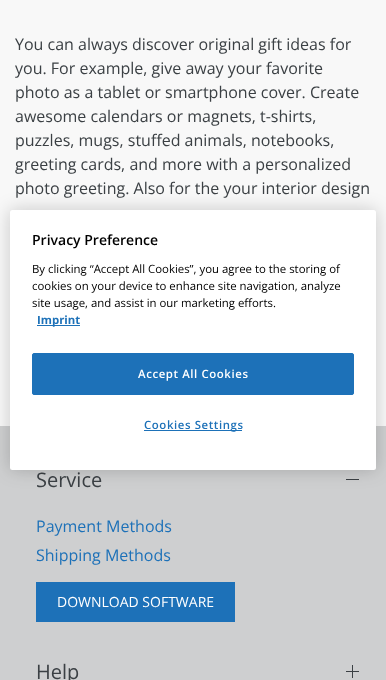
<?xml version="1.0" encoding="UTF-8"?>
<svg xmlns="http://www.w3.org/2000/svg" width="386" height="680">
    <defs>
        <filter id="blur1" x="-50%" y="-200%" width="200%" height="500%"><feGaussianBlur stdDeviation="9"/></filter>
    </defs>
    <rect width="100%" height="100%" fill="#F8F8F8"/>
    <text font-family="Open Sans" font-size="16" fill="#3B4044">
        <tspan x="15" y="50">You can always discover original gift ideas for</tspan>
        <tspan x="15" y="74">you. For example, give away your favorite</tspan>
        <tspan x="15" y="98">photo as a tablet or smartphone cover. Create</tspan>
        <tspan x="15" y="122">awesome calendars or magnets, t-shirts,</tspan>
        <tspan x="15" y="146">puzzles, mugs, stuffed animals, notebooks,</tspan>
        <tspan x="15" y="170">greeting cards, and more with a personalized</tspan>
        <tspan x="15" y="194">photo greeting. Also for the your interior design</tspan>
    </text>
    <rect x="0" y="426" width="386" height="254" fill="#CECFD0"/>
    <text x="36" y="487" font-family="Open Sans" font-size="20" fill="#3B4044">Service</text>
    <rect x="346" y="479" width="13" height="1" fill="#3B4044"/>
    <text font-family="Open Sans" font-size="16" fill="#1D71B8">
        <tspan x="36" y="532">Payment Methods</tspan>
        <tspan x="36" y="561">Shipping Methods</tspan>
    </text>
    <rect x="36" y="582" width="199" height="40" fill="#1D71B8"/>
    <text x="57" y="607" font-family="Open Sans" font-size="14" fill="#FFFFFF">DOWNLOAD SOFTWARE</text>
    <text x="36" y="679" font-family="Open Sans" font-size="20" fill="#3B4044">Help</text>
    <rect x="346" y="671" width="13" height="1" fill="#3B4044"/>
    <rect x="352" y="665" width="1" height="13" fill="#3B4044"/>
    <rect x="10" y="210" width="366" height="260" rx="2.5" fill="#000000" fill-opacity="0.2" filter="url(#blur1)"/>
    <rect x="10" y="210" width="366" height="260" rx="2.5" fill="#FFFFFF"/>
    <text x="32" y="245" font-family="Open Sans" font-size="14" font-weight="600" fill="#000000">Privacy Preference</text>
    <text font-family="Open Sans" font-size="11.4" fill="#000000">
        <tspan x="32" y="273">By clicking “Accept All Cookies”, you agree to the storing of</tspan>
        <tspan x="32" y="290">cookies on your device to enhance site navigation, analyze</tspan>
        <tspan x="32" y="307">site usage, and assist in our marketing efforts.</tspan>
    </text>
    <rect x="37" y="325" width="43" height="1" fill="#1D71B8"/>
    <text x="37" y="324" font-family="Open Sans" font-size="11.4" font-weight="700" fill="#1D71B8">Imprint</text>
    <rect x="32.5" y="353.5" width="321" height="41" rx="1.5" fill="#1D71B8" stroke="#1D71B8"/>
    <text x="138" y="378" font-family="Open Sans" font-size="11.4" font-weight="600" letter-spacing="0.6" fill="#FFFFFF">Accept All Cookies</text>
    <rect x="144" y="430" width="98" height="1" fill="#1D71B8"/>
    <text x="144" y="429" font-family="Open Sans" font-size="11.4" font-weight="600" letter-spacing="0.6" fill="#1D71B8">Cookies Settings</text>
</svg>
